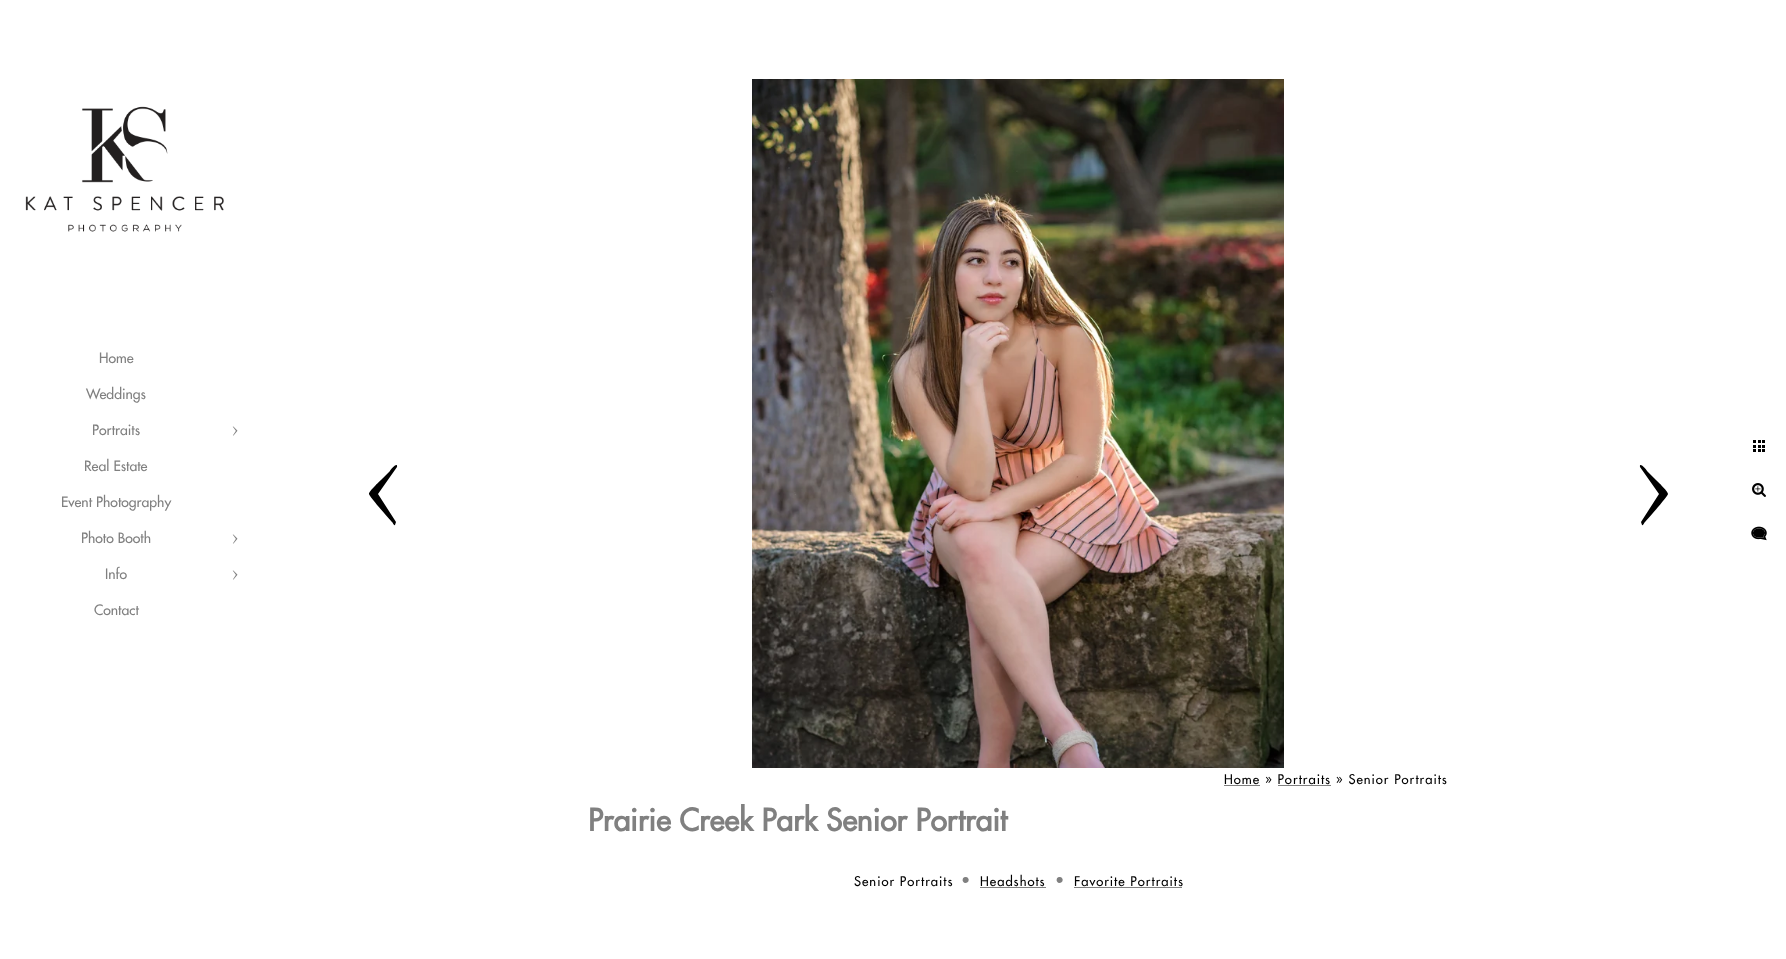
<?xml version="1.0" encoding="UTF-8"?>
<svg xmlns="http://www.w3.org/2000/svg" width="1786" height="959">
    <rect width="100%" height="100%" fill="#FFFFFF"/>
    <image x="25" y="106" width="199" height="126" href="img_01.png"/>
    <text x="99" y="363" font-family="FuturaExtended" font-size="14" fill="#808080">Home</text>
    <text x="86" y="399" font-family="FuturaExtended" font-size="14" fill="#808080">Weddings</text>
    <text x="92" y="435" font-family="FuturaExtended" font-size="14" fill="#808080">Portraits</text>
    <image x="232" y="426" width="6" height="10" href="img_02.png"/>
    <text x="84" y="471" font-family="FuturaExtended" font-size="14" fill="#808080">Real Estate</text>
    <text x="61" y="507" font-family="FuturaExtended" font-size="14" fill="#808080">Event Photography</text>
    <text x="81" y="543" font-family="FuturaExtended" font-size="14" fill="#808080">Photo Booth</text>
    <image x="232" y="534" width="6" height="10" href="img_02.png"/>
    <text x="105" y="579" font-family="FuturaExtended" font-size="14" fill="#808080">Info</text>
    <image x="232" y="570" width="6" height="10" href="img_02.png"/>
    <text x="94" y="615" font-family="FuturaExtended" font-size="14" fill="#808080">Contact</text>
    <path d="M 369 494 C 369 491 381 480 383 478 L 390 471 C 390 470 398 461 397 467 L 378 494 L 396 522 L 395 525 C 394 526 393 523 392 522 C 389 519 369 496 369 494 Z" fill="#000000"/>
    <image x="752" y="79" width="532" height="689" href="img_03.png"/>
    <path d="M 1668 494 C 1668 491 1656 480 1654 478 L 1647 471 C 1647 470 1639 461 1640 467 L 1659 494 L 1641 522 L 1642 525 C 1643 526 1644 523 1645 522 C 1648 519 1668 496 1668 494 Z" fill="#000000"/>
    <image x="1753" y="440" width="12" height="12" href="img_04.png"/>
    <image x="1752" y="483" width="14" height="14" href="img_05.png"/>
    <image x="1751" y="526" width="16" height="15" href="img_06.png"/>
    <text x="1224" y="784" font-family="FuturaExtended" font-size="13" letter-spacing="1" fill="#000000">Home » Portraits » Senior Portraits</text>
    <rect x="1224" y="785" width="36" height="1" fill="#808080"/>
    <rect x="1278" y="785" width="53" height="1" fill="#808080"/>
    <text x="588" y="831" font-family="FuturaExtended" font-size="30" font-weight="700" fill="#808080">Prairie Creek Park Senior Portrait</text>
    <text x="854" y="886" font-family="FuturaExtended" font-size="13" letter-spacing="1" fill="#000000">Senior Portraits</text>
    <text x="961" y="886" font-family="FuturaExtended" font-size="16" fill="#808080">·</text>
    <text x="980" y="886" font-family="FuturaExtended" font-size="13" letter-spacing="1" fill="#000000">Headshots</text>
    <rect x="980" y="887" width="66" height="1" fill="#808080"/>
    <text x="1055" y="886" font-family="FuturaExtended" font-size="16" fill="#808080">·</text>
    <text x="1074" y="886" font-family="FuturaExtended" font-size="13" letter-spacing="1" fill="#000000">Favorite Portraits</text>
    <rect x="1074" y="887" width="108" height="1" fill="#808080"/>
</svg>
